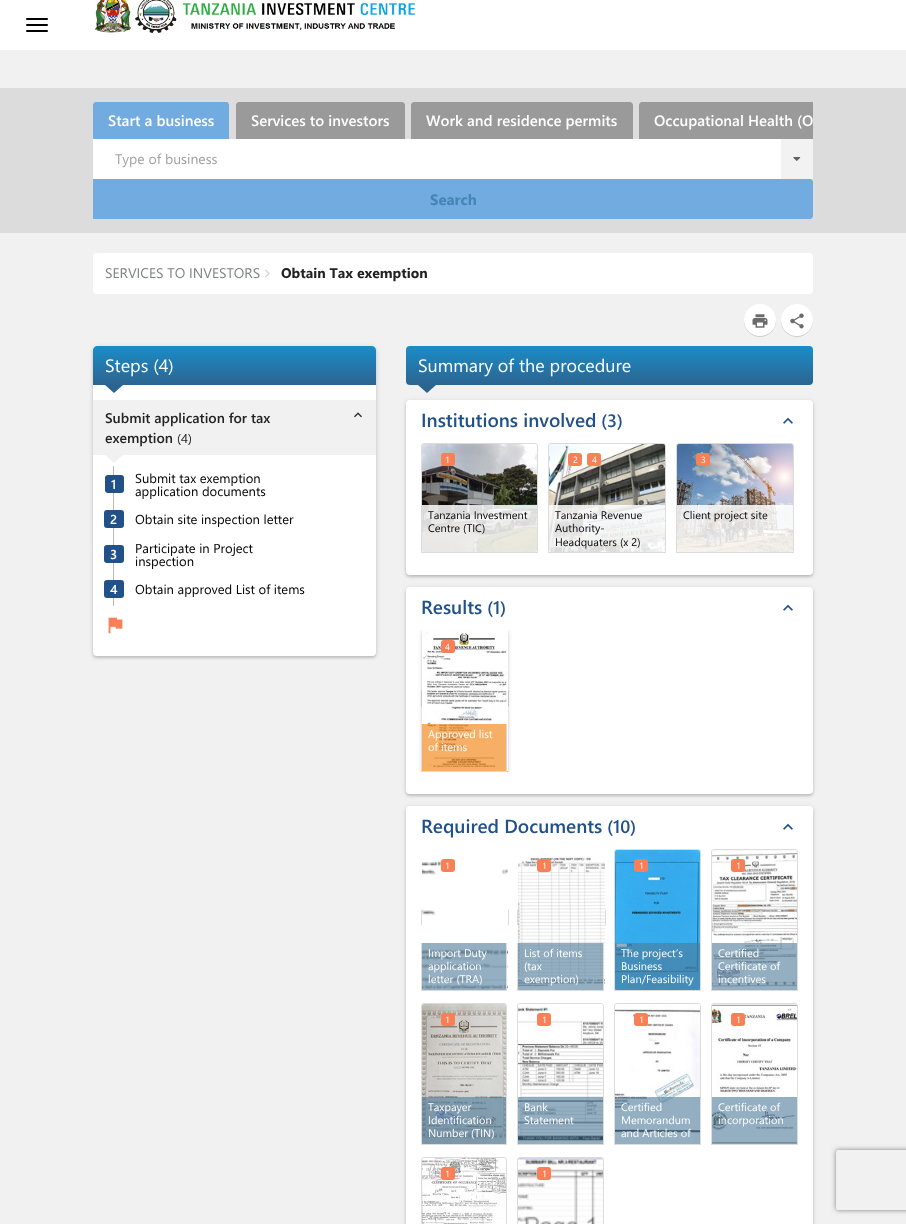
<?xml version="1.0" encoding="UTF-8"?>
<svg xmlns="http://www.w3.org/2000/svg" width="906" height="1224">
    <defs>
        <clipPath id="clip1"><rect x="93" y="102" width="720" height="37"/></clipPath>
        <filter id="blur1" x="-50%" y="-200%" width="200%" height="500%"><feGaussianBlur stdDeviation="0.5"/></filter>
        <filter id="blur2" x="-50%" y="-200%" width="200%" height="500%"><feGaussianBlur stdDeviation="2.5"/></filter>
        <filter id="blur3" x="-50%" y="-200%" width="200%" height="500%"><feGaussianBlur stdDeviation="1"/></filter>
        <linearGradient id="g1" gradientUnits="userSpaceOnUse" x1="235" y1="346" x2="235" y2="385"><stop offset="0" stop-color="#1A8DC8"/><stop offset="1" stop-color="#2C6490"/></linearGradient>
        <linearGradient id="g2" gradientUnits="userSpaceOnUse" x1="610" y1="346" x2="610" y2="385"><stop offset="0" stop-color="#1A8DC8"/><stop offset="1" stop-color="#2C6490"/></linearGradient>
        <clipPath id="clip2"><rect x="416" y="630" width="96" height="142"/></clipPath>
        <clipPath id="clip3"><path d="M 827 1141 H 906 V 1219 H 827 Z M 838 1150 H 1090 C 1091 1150 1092 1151 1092 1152 V 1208 C 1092 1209 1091 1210 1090 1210 H 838 C 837 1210 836 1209 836 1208 V 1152 C 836 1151 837 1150 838 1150 Z" clip-rule="evenodd"/></clipPath>
    </defs>
    <rect width="100%" height="100%" fill="#F1F1F1"/>
    <rect x="0" y="0" width="906" height="50" fill="#FFFFFF"/>
    <rect x="26" y="18" width="22" height="2" rx="1" fill="#000000"/>
    <rect x="26" y="24" width="22" height="2" rx="1" fill="#000000"/>
    <rect x="26" y="30" width="22" height="2" rx="1" fill="#000000"/>
    <image x="95" y="0" width="320" height="34" href="img_01.png"/>
    <rect x="0" y="88" width="906" height="145" fill="#DCDCDC"/>
    <path d="M 96 102 H 226 C 227.5 102 229 103.5 229 105 V 139 H 93 V 105 C 93 103.5 94.5 102 96 102 Z" fill="#71ABE0"/>
    <rect x="95" y="102" width="133" height="1" fill="#71ABE0"/>
    <text x="108" y="126" font-family="Segoe UI" font-size="15" font-weight="600" fill="#FFFFFF">Start a business</text>
    <path d="M 239 102 H 402 C 403.5 102 405 103.5 405 105 V 139 H 236 V 105 C 236 103.5 237.5 102 239 102 Z" fill="#9A9A9A"/>
    <text x="251" y="126" font-family="Segoe UI" font-size="15" font-weight="600" fill="#FFFFFF">Services to investors</text>
    <path d="M 414 102 H 630 C 631.5 102 633 103.5 633 105 V 139 H 411 V 105 C 411 103.5 412.5 102 414 102 Z" fill="#9A9A9A"/>
    <text x="426" y="126" font-family="Segoe UI" font-size="15" font-weight="600" fill="#FFFFFF">Work and residence permits</text>
    <path d="M 642 102 H 813 V 139 H 639 V 105 C 639 103.5 640.5 102 642 102 Z" fill="#9A9A9A"/>
    <g clip-path="url(#clip1)">
        <text x="654" y="126" font-family="Segoe UI" font-size="15" font-weight="600" fill="#FFFFFF">Occupational Health (O</text>
    </g>
    <rect x="93" y="139" width="688" height="40" fill="#FFFFFF"/>
    <rect x="812" y="139" width="1" height="40" fill="#F1F1F1"/>
    <text x="115" y="164" font-family="Segoe UI" font-size="14" fill="#A2A2A2">Type of business</text>
    <rect x="781" y="139" width="31" height="40" fill="#F2F2F2"/>
    <image x="793" y="157" width="8" height="4" href="img_02.png"/>
    <path d="M 93 179 H 810 C 811.5 179 813 180.5 813 182 V 216 C 813 217.5 811.5 219 810 219 H 93 Z" fill="#71ABE0"/>
    <text x="430" y="205" font-family="Segoe UI" font-size="15" font-weight="700" fill="#4684B4">Search</text>
    <rect x="93" y="253" width="720" height="41" rx="4" fill="#FFFFFF"/>
    <text x="105" y="278" font-family="Segoe UI" font-size="14" fill="#7F8283">SERVICES TO INVESTORS</text>
    <image x="265" y="269" width="5" height="9" href="img_03.png"/>
    <text x="281" y="278" font-family="Segoe UI" font-size="14" font-weight="700" fill="#222222">Obtain Tax exemption</text>
    <rect x="744" y="305" width="32" height="32" rx="16" fill="#222222" fill-opacity="0.15" filter="url(#blur1)"/>
    <circle cx="760" cy="320" r="16" fill="#FFFFFF"/>
    <image x="752" y="314" width="16" height="14" href="img_04.png"/>
    <rect x="781" y="305" width="32" height="32" rx="16" fill="#222222" fill-opacity="0.15" filter="url(#blur1)"/>
    <circle cx="797" cy="320" r="16" fill="#FFFFFF"/>
    <image x="790" y="313" width="14" height="16" href="img_05.png"/>
    <rect x="93" y="347" width="283" height="310" rx="4" fill="#000000" fill-opacity="0.12" filter="url(#blur2)"/>
    <rect x="93" y="348" width="283" height="310" rx="4" fill="#000000" fill-opacity="0.14" filter="url(#blur3)"/>
    <rect x="93" y="346" width="283" height="310" rx="4" fill="#FFFFFF"/>
    <path d="M 97 346 H 372 C 374 346 376 348 376 350 V 385 H 93 V 350 C 93 348 95 346 97 346 Z" fill="url(#g1)"/>
    <text x="105" y="372" font-family="Segoe UI" font-size="18" fill="#FFFFFF">Steps (4)</text>
    <path d="M 105 385 H 123 L 114 393 Z" fill="#2C6490"/>
    <rect x="93" y="400" width="283" height="55" fill="#F1F1F1"/>
    <text x="105" y="423" font-family="Segoe UI" font-size="14" font-weight="600" fill="#222222">Submit application for tax</text>
    <image x="354" y="412" width="8" height="6" href="img_06.png"/>
    <text x="105" y="443" font-family="Segoe UI" font-size="14" font-weight="600" fill="#222222">exemption</text>
    <text x="177" y="443" font-family="Segoe UI" font-size="13" fill="#222222">(4)</text>
    <path d="M 105 455 H 123 L 114 463 Z" fill="#F1F1F1"/>
    <rect x="113" y="466" width="1" height="140" fill="#BABABA"/>
    <rect x="105" y="475" width="19" height="18" rx="3" fill="#215188"/>
    <text x="111" y="489" font-family="Segoe UI" font-size="13" font-weight="600" fill="#FFFFFF">1</text>
    <text font-family="Segoe UI" font-size="13" fill="#000000">
        <tspan x="135" y="483">Submit tax exemption</tspan>
        <tspan x="135" y="496">application documents</tspan>
    </text>
    <rect x="104" y="510" width="20" height="18" rx="3" fill="#215188"/>
    <text x="110" y="524" font-family="Segoe UI" font-size="13" font-weight="600" fill="#FFFFFF">2</text>
    <text x="135" y="524" font-family="Segoe UI" font-size="13" fill="#000000">Obtain site inspection letter</text>
    <rect x="104" y="545" width="20" height="18" rx="3" fill="#215188"/>
    <text x="110" y="559" font-family="Segoe UI" font-size="13" font-weight="600" fill="#FFFFFF">3</text>
    <text font-family="Segoe UI" font-size="13" fill="#000000">
        <tspan x="135" y="553">Participate in Project</tspan>
        <tspan x="135" y="566">inspection</tspan>
    </text>
    <rect x="104" y="580" width="20" height="18" rx="3" fill="#215188"/>
    <text x="110" y="594" font-family="Segoe UI" font-size="13" font-weight="600" fill="#FFFFFF">4</text>
    <text x="135" y="594" font-family="Segoe UI" font-size="13" fill="#000000">Obtain approved List of items</text>
    <image x="108" y="617" width="15" height="17" href="img_07.png"/>
    <rect x="406" y="346" width="407" height="39" rx="4" fill="url(#g2)"/>
    <text x="418" y="372" font-family="Segoe UI" font-size="18" fill="#FFFFFF">Summary of the procedure</text>
    <rect x="406" y="401" width="407" height="175" rx="4" fill="#000000" fill-opacity="0.12" filter="url(#blur2)"/>
    <path d="M 418 385 H 436 L 427 393 Z" fill="#2C6490"/>
    <rect x="406" y="402" width="407" height="175" rx="4" fill="#000000" fill-opacity="0.14" filter="url(#blur3)"/>
    <rect x="406" y="400" width="407" height="175" rx="4" fill="#FFFFFF"/>
    <text x="421" y="427" font-family="Segoe UI" font-size="19" font-weight="600" fill="#205189">Institutions involved</text>
    <text x="601" y="427" font-family="Segoe UI" font-size="18" font-weight="600" fill="#205189">(3)</text>
    <image x="783" y="417" width="10" height="7" href="img_08.png"/>
    <rect x="421.5" y="443.5" width="116" height="109" rx="2.5" fill="none" stroke="#DCDCDC"/>
    <image x="422" y="444" width="115" height="108" href="img_09.png"/>
    <rect x="441" y="453" width="14" height="13" rx="3" fill="#F87F56"/>
    <text x="445" y="463" font-family="Segoe UI" font-size="9" fill="#FFFFFF">1</text>
    <rect x="422" y="505" width="115" height="47" fill="#FFFFFF" fill-opacity="0.85"/>
    <rect x="537" y="550" width="1" height="3" fill="#DCDCDC"/>
    <rect x="421" y="552" width="117" height="1" fill="#DCDCDC"/>
    <rect x="421" y="550" width="1" height="3" fill="#DCDCDC"/>
    <text font-family="Segoe UI" font-size="11" fill="#000000">
        <tspan x="428" y="519">Tanzania Investment</tspan>
        <tspan x="428" y="532">Centre (TIC)</tspan>
    </text>
    <rect x="548.5" y="443.5" width="117" height="109" rx="2.5" fill="none" stroke="#DCDCDC"/>
    <image x="549" y="444" width="116" height="108" href="img_10.png"/>
    <rect x="568" y="453" width="14" height="13" rx="3" fill="#F87F56"/>
    <text x="573" y="463" font-family="Segoe UI" font-size="9" fill="#FFFFFF">2</text>
    <rect x="587" y="453" width="14" height="13" rx="3" fill="#F87F56"/>
    <text x="592" y="463" font-family="Segoe UI" font-size="9" fill="#FFFFFF">4</text>
    <rect x="549" y="505" width="116" height="47" fill="#FFFFFF" fill-opacity="0.85"/>
    <rect x="665" y="550" width="1" height="3" fill="#DCDCDC"/>
    <rect x="548" y="552" width="118" height="1" fill="#DCDCDC"/>
    <rect x="548" y="550" width="1" height="3" fill="#DCDCDC"/>
    <text font-family="Segoe UI" font-size="11" fill="#000000">
        <tspan x="555" y="519">Tanzania Revenue</tspan>
        <tspan x="555" y="532">Authority-</tspan>
        <tspan x="555" y="546">Headquaters (x 2)</tspan>
    </text>
    <rect x="676.5" y="443.5" width="117" height="109" rx="2.5" fill="none" stroke="#DCDCDC"/>
    <image x="677" y="444" width="116" height="108" href="img_11.png"/>
    <rect x="696" y="453" width="14" height="13" rx="3" fill="#F87F56"/>
    <text x="701" y="463" font-family="Segoe UI" font-size="9" fill="#FFFFFF">3</text>
    <rect x="677" y="505" width="116" height="47" fill="#FFFFFF" fill-opacity="0.85"/>
    <rect x="793" y="550" width="1" height="3" fill="#DCDCDC"/>
    <rect x="676" y="552" width="118" height="1" fill="#DCDCDC"/>
    <rect x="676" y="550" width="1" height="3" fill="#DCDCDC"/>
    <text x="683" y="519" font-family="Segoe UI" font-size="11" fill="#000000">Client project site</text>
    <rect x="406" y="588" width="407" height="207" rx="4" fill="#000000" fill-opacity="0.12" filter="url(#blur2)"/>
    <rect x="406" y="589" width="407" height="207" rx="4" fill="#000000" fill-opacity="0.14" filter="url(#blur3)"/>
    <rect x="406" y="587" width="407" height="207" rx="4" fill="#FFFFFF"/>
    <text x="421" y="614" font-family="Segoe UI" font-size="19" font-weight="600" fill="#205189">Results</text>
    <text x="487" y="614" font-family="Segoe UI" font-size="18" font-weight="600" fill="#205189">(1)</text>
    <image x="783" y="604" width="10" height="7" href="img_08.png"/>
    <rect x="421.5" y="689.5" width="87" height="18" rx="2.5" fill="none" stroke="#DCDCDC"/>
    <g clip-path="url(#clip2)">
        <rect x="422" y="631" width="86" height="142" fill="#000000" fill-opacity="0.12" filter="url(#blur2)"/>
        <rect x="422" y="632" width="86" height="142" fill="#000000" fill-opacity="0.14" filter="url(#blur3)"/>
    </g>
    <image x="422" y="630" width="86" height="142" href="img_12.png"/>
    <rect x="441" y="640" width="14" height="13" rx="3" fill="#F87F56"/>
    <text x="445" y="650" font-family="Segoe UI" font-size="9" fill="#FFFFFF">4</text>
    <rect x="422" y="724" width="84" height="47" fill="#F27A00" fill-opacity="0.6"/>
    <rect x="506" y="724" width="1" height="48" fill="#DCDCDC"/>
    <rect x="421" y="771" width="86" height="1" fill="#DCDCDC"/>
    <rect x="421" y="724" width="1" height="48" fill="#DCDCDC"/>
    <text font-family="Segoe UI" font-size="11" fill="#FFFFFF">
        <tspan x="428" y="738">Approved list</tspan>
        <tspan x="428" y="751">of items</tspan>
    </text>
    <rect x="406" y="807" width="407" height="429" rx="4" fill="#000000" fill-opacity="0.12" filter="url(#blur2)"/>
    <rect x="406" y="808" width="407" height="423" rx="4" fill="#000000" fill-opacity="0.14" filter="url(#blur3)"/>
    <rect x="406" y="806" width="407" height="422" rx="4" fill="#FFFFFF"/>
    <text x="421" y="833" font-family="Segoe UI" font-size="19" font-weight="600" fill="#205189">Required Documents</text>
    <text x="607" y="833" font-family="Segoe UI" font-size="18" font-weight="600" fill="#205189">(10)</text>
    <image x="783" y="823" width="10" height="7" href="img_08.png"/>
    <rect x="421.5" y="908.5" width="87" height="18" rx="2.5" fill="none" stroke="#DCDCDC"/>
    <image x="422" y="860" width="86" height="130" href="img_13.png"/>
    <rect x="441" y="859" width="14" height="13" rx="3" fill="#F87F56"/>
    <text x="445" y="869" font-family="Segoe UI" font-size="9" fill="#FFFFFF">1</text>
    <rect x="422" y="943" width="84" height="47" fill="#4D7A9A" fill-opacity="0.6"/>
    <rect x="506" y="943" width="1" height="48" fill="#DCDCDC"/>
    <rect x="421" y="990" width="86" height="1" fill="#DCDCDC"/>
    <rect x="421" y="943" width="1" height="48" fill="#DCDCDC"/>
    <text font-family="Segoe UI" font-size="11" fill="#FFFFFF">
        <tspan x="428" y="957">Import Duty</tspan>
        <tspan x="428" y="970">application</tspan>
        <tspan x="428" y="983">letter (TRA)</tspan>
    </text>
    <rect x="517.5" y="908.5" width="88" height="18" rx="2.5" fill="none" stroke="#DCDCDC"/>
    <image x="518" y="856" width="87" height="132" href="img_14.png"/>
    <rect x="537" y="859" width="14" height="13" rx="3" fill="#F87F56"/>
    <text x="542" y="869" font-family="Segoe UI" font-size="9" fill="#FFFFFF">1</text>
    <rect x="518" y="943" width="85" height="47" fill="#4D7A9A" fill-opacity="0.6"/>
    <rect x="603" y="943" width="1" height="48" fill="#DCDCDC"/>
    <rect x="517" y="990" width="87" height="1" fill="#DCDCDC"/>
    <rect x="517" y="943" width="1" height="48" fill="#DCDCDC"/>
    <text font-family="Segoe UI" font-size="11" fill="#FFFFFF">
        <tspan x="524" y="957">List of items</tspan>
        <tspan x="524" y="970">(tax</tspan>
        <tspan x="524" y="983">exemption)</tspan>
    </text>
    <rect x="614.5" y="849.5" width="86" height="141" rx="2.5" fill="none" stroke="#DCDCDC"/>
    <image x="615" y="850" width="85" height="140" href="img_15.png"/>
    <rect x="634" y="859" width="14" height="13" rx="3" fill="#F87F56"/>
    <text x="639" y="869" font-family="Segoe UI" font-size="9" fill="#FFFFFF">1</text>
    <rect x="615" y="943" width="85" height="47" fill="#4D7A9A" fill-opacity="0.6"/>
    <rect x="700" y="988" width="1" height="3" fill="#DCDCDC"/>
    <rect x="614" y="990" width="87" height="1" fill="#DCDCDC"/>
    <rect x="614" y="988" width="1" height="3" fill="#DCDCDC"/>
    <text font-family="Segoe UI" font-size="11" fill="#FFFFFF">
        <tspan x="621" y="957">The project’s</tspan>
        <tspan x="621" y="970">Business</tspan>
        <tspan x="621" y="983">Plan/Feasibility</tspan>
    </text>
    <rect x="711.5" y="849.5" width="86" height="141" rx="2.5" fill="none" stroke="#DCDCDC"/>
    <image x="712" y="850" width="85" height="140" href="img_16.png"/>
    <rect x="731" y="859" width="14" height="13" rx="3" fill="#F87F56"/>
    <text x="736" y="869" font-family="Segoe UI" font-size="9" fill="#FFFFFF">1</text>
    <rect x="712" y="943" width="85" height="47" fill="#4D7A9A" fill-opacity="0.6"/>
    <rect x="797" y="988" width="1" height="3" fill="#DCDCDC"/>
    <rect x="711" y="990" width="87" height="1" fill="#DCDCDC"/>
    <rect x="711" y="988" width="1" height="3" fill="#DCDCDC"/>
    <text font-family="Segoe UI" font-size="11" fill="#FFFFFF">
        <tspan x="718" y="957">Certified</tspan>
        <tspan x="718" y="970">Certificate of</tspan>
        <tspan x="718" y="983">incentives</tspan>
    </text>
    <rect x="421.5" y="1003.5" width="85" height="141" rx="2.5" fill="none" stroke="#DCDCDC"/>
    <image x="422" y="1004" width="84" height="140" href="img_17.png"/>
    <rect x="441" y="1013" width="14" height="13" rx="3" fill="#F87F56"/>
    <text x="445" y="1023" font-family="Segoe UI" font-size="9" fill="#FFFFFF">1</text>
    <rect x="422" y="1097" width="84" height="47" fill="#4D7A9A" fill-opacity="0.6"/>
    <rect x="506" y="1142" width="1" height="3" fill="#DCDCDC"/>
    <rect x="421" y="1144" width="86" height="1" fill="#DCDCDC"/>
    <rect x="421" y="1142" width="1" height="3" fill="#DCDCDC"/>
    <text font-family="Segoe UI" font-size="11" fill="#FFFFFF">
        <tspan x="428" y="1111">Taxpayer</tspan>
        <tspan x="428" y="1124">Identification</tspan>
        <tspan x="428" y="1137">Number (TIN)</tspan>
    </text>
    <rect x="517.5" y="1003.5" width="86" height="141" rx="2.5" fill="none" stroke="#DCDCDC"/>
    <image x="518" y="1004" width="85" height="140" href="img_18.png"/>
    <rect x="537" y="1013" width="14" height="13" rx="3" fill="#F87F56"/>
    <text x="542" y="1023" font-family="Segoe UI" font-size="9" fill="#FFFFFF">1</text>
    <rect x="518" y="1097" width="85" height="47" fill="#4D7A9A" fill-opacity="0.6"/>
    <rect x="603" y="1142" width="1" height="3" fill="#DCDCDC"/>
    <rect x="517" y="1144" width="87" height="1" fill="#DCDCDC"/>
    <rect x="517" y="1142" width="1" height="3" fill="#DCDCDC"/>
    <text font-family="Segoe UI" font-size="11" fill="#FFFFFF">
        <tspan x="524" y="1111">Bank</tspan>
        <tspan x="524" y="1124">Statement</tspan>
    </text>
    <rect x="614.5" y="1003.5" width="86" height="141" rx="2.5" fill="none" stroke="#DCDCDC"/>
    <image x="615" y="1004" width="85" height="140" href="img_19.png"/>
    <rect x="634" y="1013" width="14" height="13" rx="3" fill="#F87F56"/>
    <text x="639" y="1023" font-family="Segoe UI" font-size="9" fill="#FFFFFF">1</text>
    <rect x="615" y="1097" width="85" height="47" fill="#4D7A9A" fill-opacity="0.6"/>
    <rect x="700" y="1142" width="1" height="3" fill="#DCDCDC"/>
    <rect x="614" y="1144" width="87" height="1" fill="#DCDCDC"/>
    <rect x="614" y="1142" width="1" height="3" fill="#DCDCDC"/>
    <text font-family="Segoe UI" font-size="11" fill="#FFFFFF">
        <tspan x="621" y="1111">Certified</tspan>
        <tspan x="621" y="1124">Memorandum</tspan>
        <tspan x="621" y="1137">and Articles of</tspan>
    </text>
    <rect x="711.5" y="1003.5" width="86" height="141" rx="2.5" fill="none" stroke="#DCDCDC"/>
    <image x="712" y="1004" width="85" height="140" href="img_20.png"/>
    <rect x="731" y="1013" width="14" height="13" rx="3" fill="#F87F56"/>
    <text x="736" y="1023" font-family="Segoe UI" font-size="9" fill="#FFFFFF">1</text>
    <rect x="712" y="1097" width="85" height="47" fill="#4D7A9A" fill-opacity="0.6"/>
    <rect x="797" y="1142" width="1" height="3" fill="#DCDCDC"/>
    <rect x="711" y="1144" width="87" height="1" fill="#DCDCDC"/>
    <rect x="711" y="1142" width="1" height="3" fill="#DCDCDC"/>
    <text font-family="Segoe UI" font-size="11" fill="#FFFFFF">
        <tspan x="718" y="1111">Certificate of</tspan>
        <tspan x="718" y="1124">incorporation</tspan>
    </text>
    <rect x="421.5" y="1157.5" width="85" height="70" rx="2.5" fill="none" stroke="#DCDCDC"/>
    <image x="422" y="1158" width="84" height="66" href="img_21.png"/>
    <rect x="441" y="1167" width="14" height="13" rx="3" fill="#F87F56"/>
    <text x="445" y="1177" font-family="Segoe UI" font-size="9" fill="#FFFFFF">1</text>
    <rect x="517.5" y="1157.5" width="86" height="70" rx="2.5" fill="none" stroke="#DCDCDC"/>
    <image x="518" y="1158" width="85" height="66" href="img_22.png"/>
    <rect x="537" y="1167" width="14" height="13" rx="3" fill="#F87F56"/>
    <text x="542" y="1177" font-family="Segoe UI" font-size="9" fill="#FFFFFF">1</text>
    <g clip-path="url(#clip3)">
        <rect x="836" y="1150" width="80" height="60" rx="2" fill="#808080" filter="url(#blur2)"/>
    </g>
</svg>
